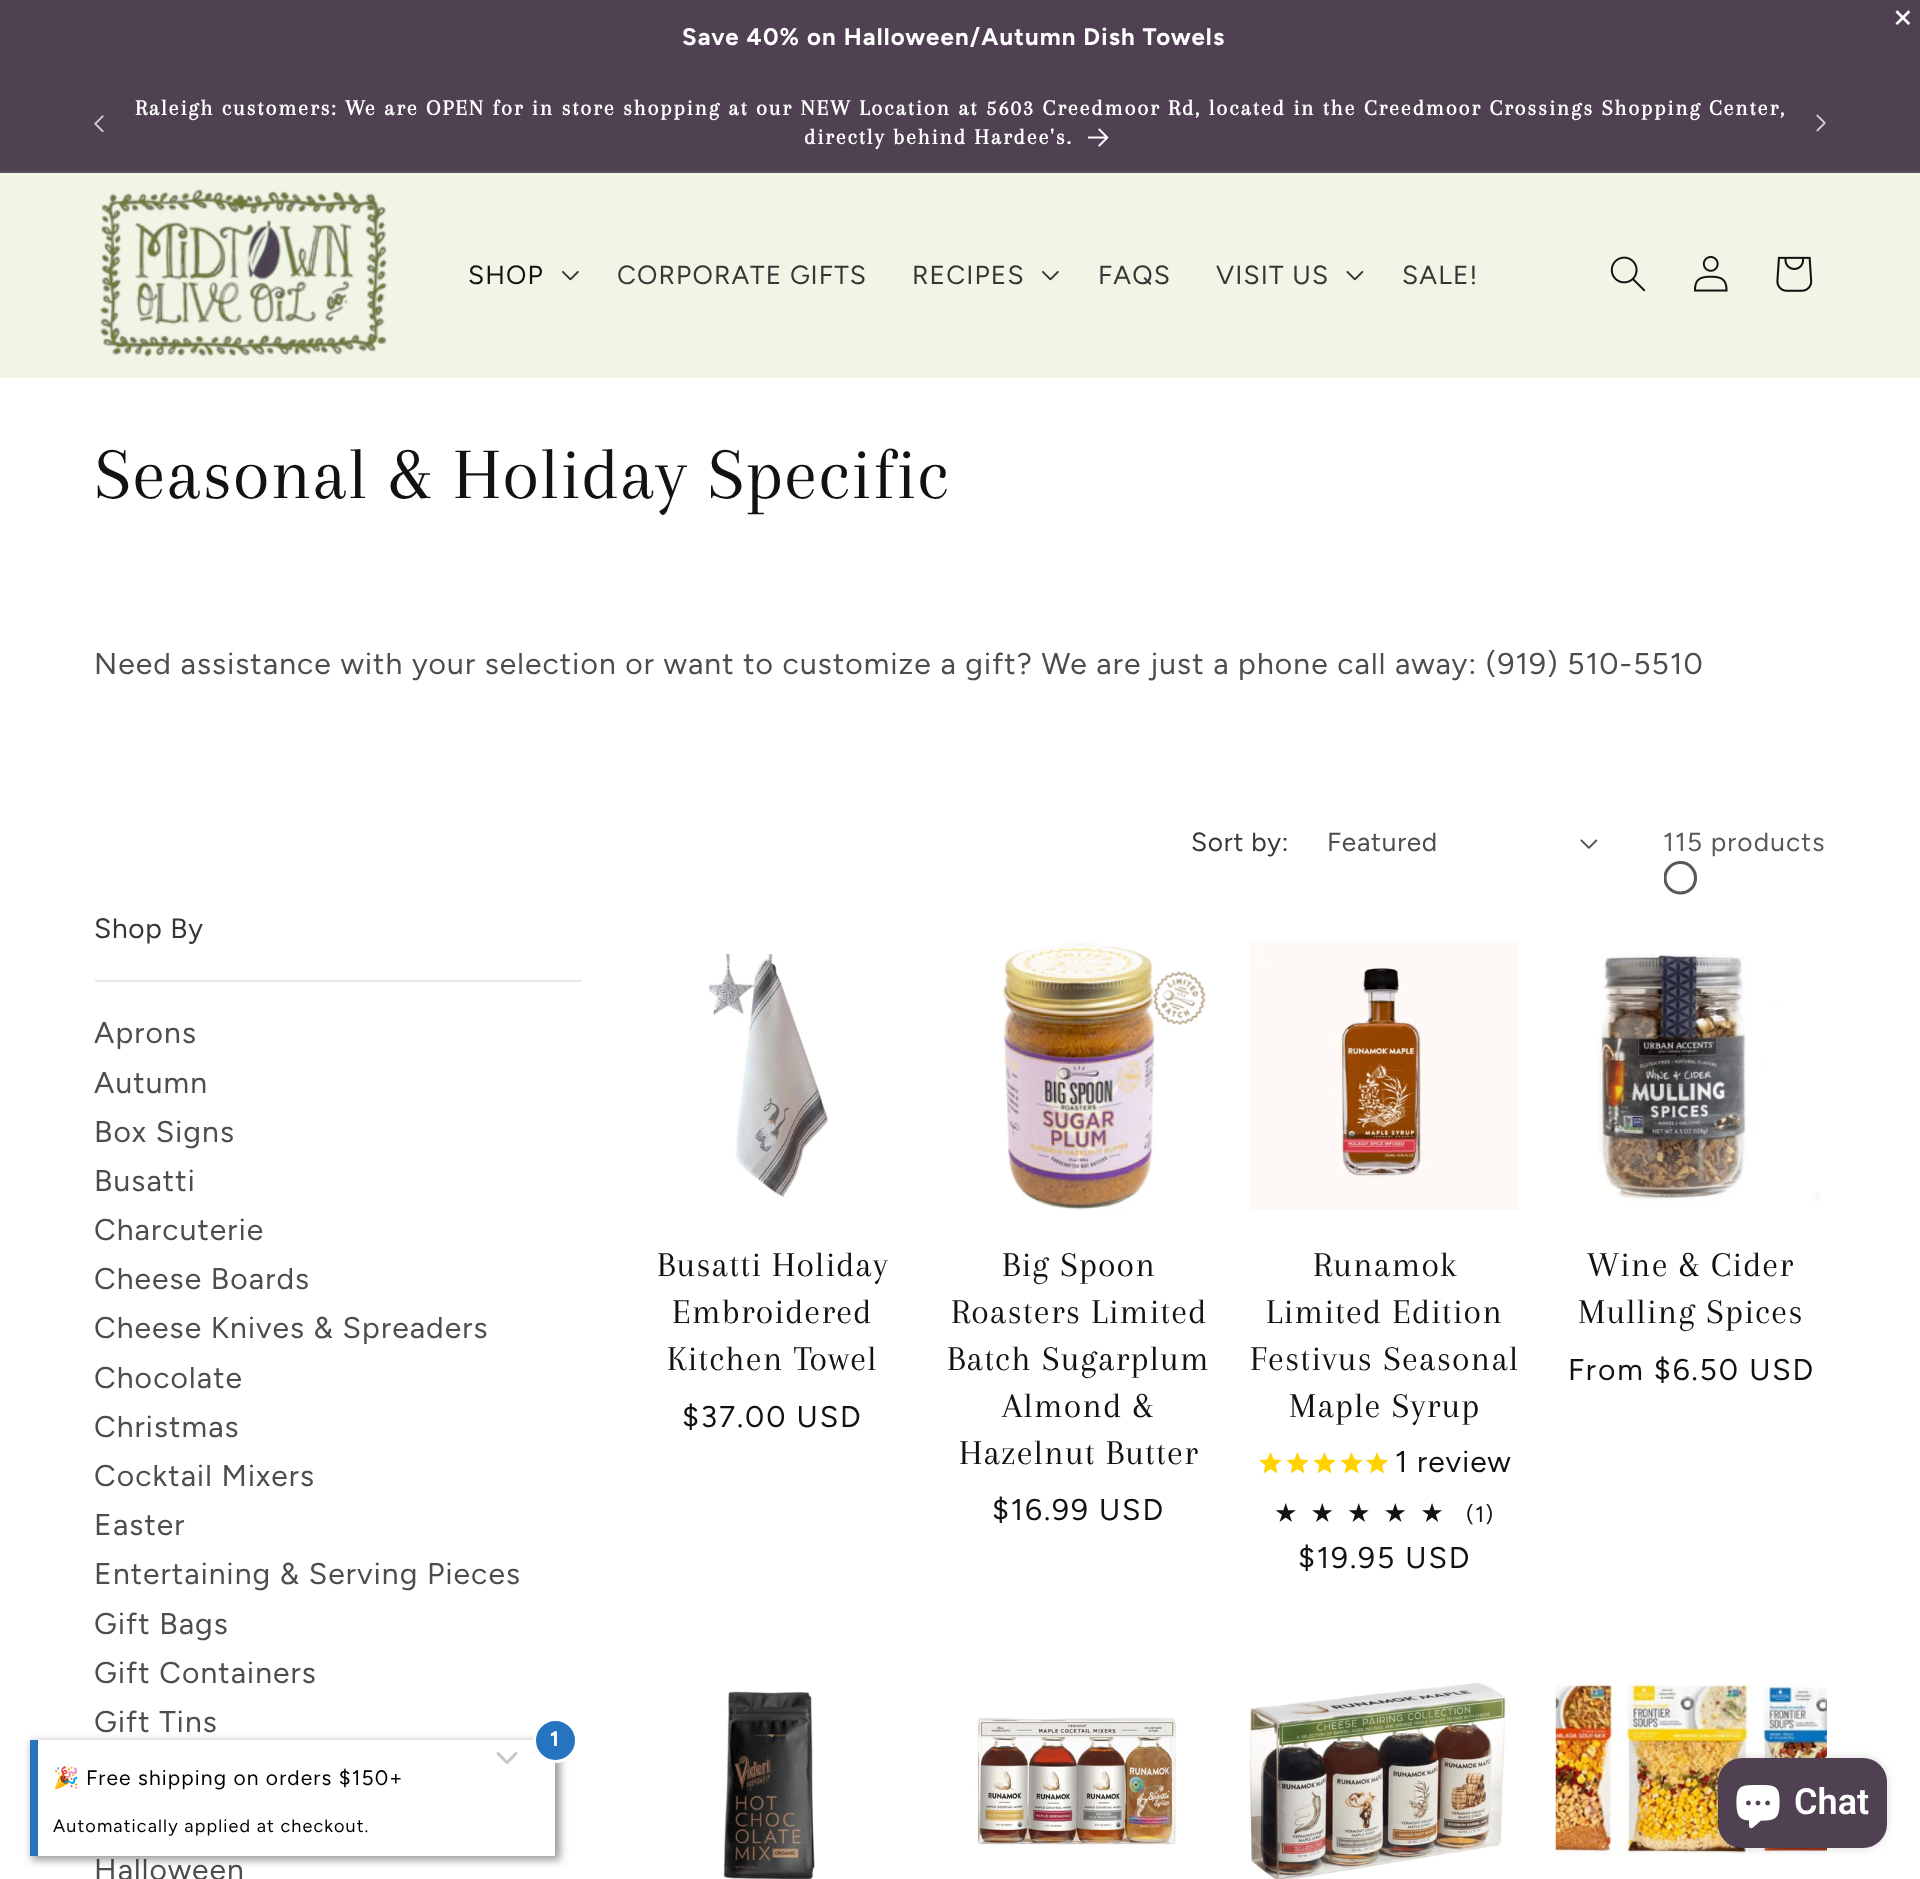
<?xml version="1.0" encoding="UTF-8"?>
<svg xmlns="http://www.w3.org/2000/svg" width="1920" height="1879">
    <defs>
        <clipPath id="clip1"><rect x="1664" y="861" width="33" height="35"/></clipPath>
        <linearGradient id="g1" gradientUnits="userSpaceOnUse" x1="1274" y1="1513" x2="1458" y2="1513"><stop offset="1" stop-color="#121212"/><stop offset="1" stop-color="#DBDBDB"/></linearGradient>
        <clipPath id="clip2"><path d="M 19 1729 H 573 V 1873 H 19 Z M 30 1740 H 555 V 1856 H 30 Z" clip-rule="evenodd"/></clipPath>
        <filter id="blur1" x="-50%" y="-200%" width="200%" height="500%"><feGaussianBlur stdDeviation="4"/></filter>
    </defs>
    <rect width="100%" height="100%" fill="#FFFFFF"/>
    <rect x="0" y="0" width="1920" height="171" fill="#4F4151"/>
    <text x="1891" y="29" font-family="Figtree" font-size="38" letter-spacing="1.12" fill="#FFFFFF">×</text>
    <text x="682" y="45" font-family="Figtree" font-size="24" font-weight="700" letter-spacing="1.12" fill="#FFFFFF">Save 40% on Halloween/Autumn Dish Towels</text>
    <rect x="0" y="171" width="1920" height="2" fill="#5D505F"/>
    <image x="94" y="115" width="10" height="18" href="img_01.png"/>
    <text x="135" y="115" font-family="Arapey" font-size="22.5" font-weight="700" letter-spacing="1.88" fill="#FFFFFF">Raleigh customers: We are OPEN for in store shopping at our NEW Location at 5603 Creedmoor Rd, located in the Creedmoor Crossings Shopping Center,</text>
    <text x="804" y="144" font-family="Arapey" font-size="22.5" font-weight="700" letter-spacing="1.88" fill="#FFFFFF">directly behind Hardee's.</text>
    <image x="1088" y="128" width="21" height="19" href="img_02.png"/>
    <image x="1816" y="114" width="10" height="18" href="img_03.png"/>
    <rect x="0" y="173" width="1920" height="205" fill="#F0F5E5"/>
    <image x="100" y="189" width="288" height="169" href="img_04.png"/>
    <text x="468" y="284" font-family="Figtree" font-size="26.25" letter-spacing="1.12" fill="#121212">SHOP</text>
    <image x="562" y="271" width="17" height="10" href="img_05.png"/>
    <text x="617" y="284" font-family="Figtree" font-size="26.25" letter-spacing="1.12" fill="#363636">CORPORATE GIFTS</text>
    <text x="912" y="284" font-family="Figtree" font-size="26.25" letter-spacing="1.12" fill="#363636">RECIPES</text>
    <image x="1042" y="271" width="17" height="10" href="img_05.png"/>
    <text x="1098" y="284" font-family="Figtree" font-size="26.25" letter-spacing="1.12" fill="#363636">FAQS</text>
    <text x="1216" y="284" font-family="Figtree" font-size="26.25" letter-spacing="1.12" fill="#363636">VISIT US</text>
    <image x="1346" y="271" width="18" height="10" href="img_06.png"/>
    <text x="1402" y="284" font-family="Figtree" font-size="26.25" letter-spacing="1.12" fill="#363636">SALE!</text>
    <image x="1610" y="256" width="36" height="36" href="img_07.png"/>
    <image x="1693" y="256" width="35" height="36" href="img_08.png"/>
    <image x="1776" y="256" width="37" height="36" href="img_09.png"/>
    <text x="94" y="498" font-family="Arapey" font-size="75" letter-spacing="1.12" fill="#121212">Seasonal &amp; Holiday Specific</text>
    <text x="94" y="674" font-family="Figtree" font-size="30" letter-spacing="1.12" fill="#4D4D4D">Need assistance with your selection or want to customize a gift? We are just a phone call away: (919) 510-5510</text>
    <text x="1191" y="851" font-family="Figtree" font-size="26.25" letter-spacing="0.75" fill="#363636">Sort by:</text>
    <text x="1327" y="851" font-family="Figtree" font-size="26.25" letter-spacing="0.75" fill="#4D4D4D">Featured</text>
    <image x="1580" y="839" width="18" height="10" href="img_10.png"/>
    <text x="1663" y="851" font-family="Figtree" font-size="26.25" letter-spacing="1.12" fill="#595959">115 products</text>
    <g clip-path="url(#clip1)">
        <path d="M 1680.5 862.5 C 1689 862.5 1695.5 869.5 1695.5 878 C 1695.5 886.5 1689 893 1680.5 893 C 1672 893 1665 886.5 1665 878 C 1665 869.5 1672 862.5 1680.5 862.5" fill="none" stroke="#595959" stroke-width="3.1"/>
    </g>
    <rect x="95" y="980" width="487" height="2" fill="#E7E7E7"/>
    <text x="94" y="938" font-family="Figtree" font-size="28" letter-spacing="0.75" fill="#363636">Shop By</text>
    <text font-family="Figtree" font-size="30" letter-spacing="1.12" fill="#4D4D4D">
        <tspan x="94" y="1043">Aprons</tspan>
        <tspan x="94" y="1093">Autumn</tspan>
        <tspan x="94" y="1142">Box Signs</tspan>
        <tspan x="94" y="1191">Busatti</tspan>
        <tspan x="94" y="1240">Charcuterie</tspan>
        <tspan x="94" y="1289">Cheese Boards</tspan>
        <tspan x="94" y="1338">Cheese Knives &amp; Spreaders</tspan>
        <tspan x="94" y="1388">Chocolate</tspan>
        <tspan x="94" y="1437">Christmas</tspan>
        <tspan x="94" y="1486">Cocktail Mixers</tspan>
        <tspan x="94" y="1535">Easter</tspan>
        <tspan x="94" y="1584">Entertaining &amp; Serving Pieces</tspan>
        <tspan x="94" y="1634">Gift Bags</tspan>
        <tspan x="94" y="1683">Gift Containers</tspan>
        <tspan x="94" y="1732">Gift Tins</tspan>
    </text>
    <text x="94" y="1880" font-family="Figtree" font-size="30" letter-spacing="1.12" fill="#4D4D4D">Halloween</text>
    <image x="708" y="953" width="120" height="245" href="img_11.png"/>
    <text x="657" y="1276" font-family="Arapey" font-size="36" letter-spacing="1.12" fill="#121212">Busatti Holiday</text>
    <text x="672" y="1323" font-family="Arapey" font-size="36" letter-spacing="1.12" fill="#121212">Embroidered</text>
    <text x="667" y="1370" font-family="Arapey" font-size="36" letter-spacing="1.12" fill="#121212">Kitchen Towel</text>
    <text x="682" y="1427" font-family="Figtree" font-size="30" letter-spacing="1.88" fill="#121212">$37.00 USD</text>
    <image x="1002" y="943" width="204" height="267" href="img_12.png"/>
    <text x="1002" y="1276" font-family="Arapey" font-size="36" letter-spacing="1.12" fill="#121212">Big Spoon</text>
    <text x="951" y="1323" font-family="Arapey" font-size="36" letter-spacing="1.12" fill="#121212">Roasters Limited</text>
    <text x="947" y="1370" font-family="Arapey" font-size="36" letter-spacing="1.12" fill="#121212">Batch Sugarplum</text>
    <text x="1002" y="1417" font-family="Arapey" font-size="36" letter-spacing="1.12" fill="#121212">Almond &amp;</text>
    <text x="959" y="1464" font-family="Arapey" font-size="36" letter-spacing="1.12" fill="#121212">Hazelnut Butter</text>
    <text x="992" y="1520" font-family="Figtree" font-size="30" letter-spacing="1.88" fill="#121212">$16.99 USD</text>
    <image x="1250" y="941" width="269" height="269" href="img_13.png"/>
    <text x="1313" y="1276" font-family="Arapey" font-size="36" letter-spacing="1.12" fill="#121212">Runamok</text>
    <text x="1266" y="1323" font-family="Arapey" font-size="36" letter-spacing="1.12" fill="#121212">Limited Edition</text>
    <text x="1250" y="1370" font-family="Arapey" font-size="36" letter-spacing="1.12" fill="#121212">Festivus Seasonal</text>
    <text x="1289" y="1417" font-family="Arapey" font-size="36" letter-spacing="1.12" fill="#121212">Maple Syrup</text>
    <image x="1259" y="1452" width="23" height="22" href="img_14.png"/>
    <image x="1286" y="1452" width="23" height="22" href="img_14.png"/>
    <image x="1313" y="1452" width="23" height="22" href="img_14.png"/>
    <image x="1340" y="1452" width="23" height="22" href="img_14.png"/>
    <image x="1365" y="1452" width="24" height="22" href="img_15.png"/>
    <text x="1395" y="1472" font-family="Figtree" font-size="30" letter-spacing="1.12" fill="#121212">1 review</text>
    <text x="1274" y="1522" font-family="DejaVu Sans" font-size="26.25" letter-spacing="13" fill="url(#g1)">★★★★★</text>
    <text x="1466" y="1522" font-family="Figtree" font-size="22.5" letter-spacing="1" fill="#121212">(1)</text>
    <text x="1298" y="1568" font-family="Figtree" font-size="30" letter-spacing="1.88" fill="#121212">$19.95 USD</text>
    <image x="1597" y="954" width="223" height="249" href="img_16.png"/>
    <text x="1587" y="1276" font-family="Arapey" font-size="36" letter-spacing="1.12" fill="#121212">Wine &amp; Cider</text>
    <text x="1578" y="1323" font-family="Arapey" font-size="36" letter-spacing="1.12" fill="#121212">Mulling Spices</text>
    <text x="1568" y="1380" font-family="Figtree" font-size="30" letter-spacing="1.88" fill="#121212">From $6.50 USD</text>
    <image x="722" y="1691" width="93" height="188" href="img_17.png"/>
    <image x="974" y="1716" width="203" height="129" href="img_18.png"/>
    <image x="1250" y="1682" width="256" height="197" href="img_19.png"/>
    <image x="1555" y="1683" width="272" height="172" href="img_20.png"/>
    <g clip-path="url(#clip2)">
        <rect x="32" y="1742" width="528" height="118" fill="#000000" fill-opacity="0.4" filter="url(#blur1)"/>
    </g>
    <rect x="38" y="1855" width="517" height="1" fill="#FFFFFF" fill-opacity="0.8"/>
    <circle cx="555.5" cy="1740.5" r="21" fill="#2673BF" stroke="#FFFFFF" stroke-width="3"/>
    <text x="550" y="1746" font-family="Figtree" font-size="21" font-weight="700" letter-spacing="1.12" fill="#FFFFFF">1</text>
    <rect x="30" y="1740" width="8" height="116" fill="#2673BF"/>
    <image x="496" y="1752" width="22" height="12" href="img_21.png"/>
    <text x="53" y="1785" font-family="Noto Color Emoji" font-size="21" letter-spacing="1.12" fill="#000000">🎉</text>
    <text x="86" y="1785" font-family="Figtree" font-size="21" letter-spacing="1.12" fill="#000000">Free shipping on orders $150+</text>
    <text x="53" y="1832" font-family="Figtree" font-size="18" letter-spacing="1.12" fill="#000000">Automatically applied at checkout.</text>
    <rect x="1718" y="1758" width="169" height="90" rx="24" fill="#000000" fill-opacity="0.15" filter="url(#blur1)"/>
    <rect x="1718" y="1758" width="169" height="90" rx="24" fill="#4F4151"/>
    <image x="1736" y="1785" width="44" height="44" href="img_22.png"/>
    <text x="1794" y="1814" font-family="Roboto" font-size="36" font-weight="600" fill="#FFFFFF">Chat</text>
</svg>
